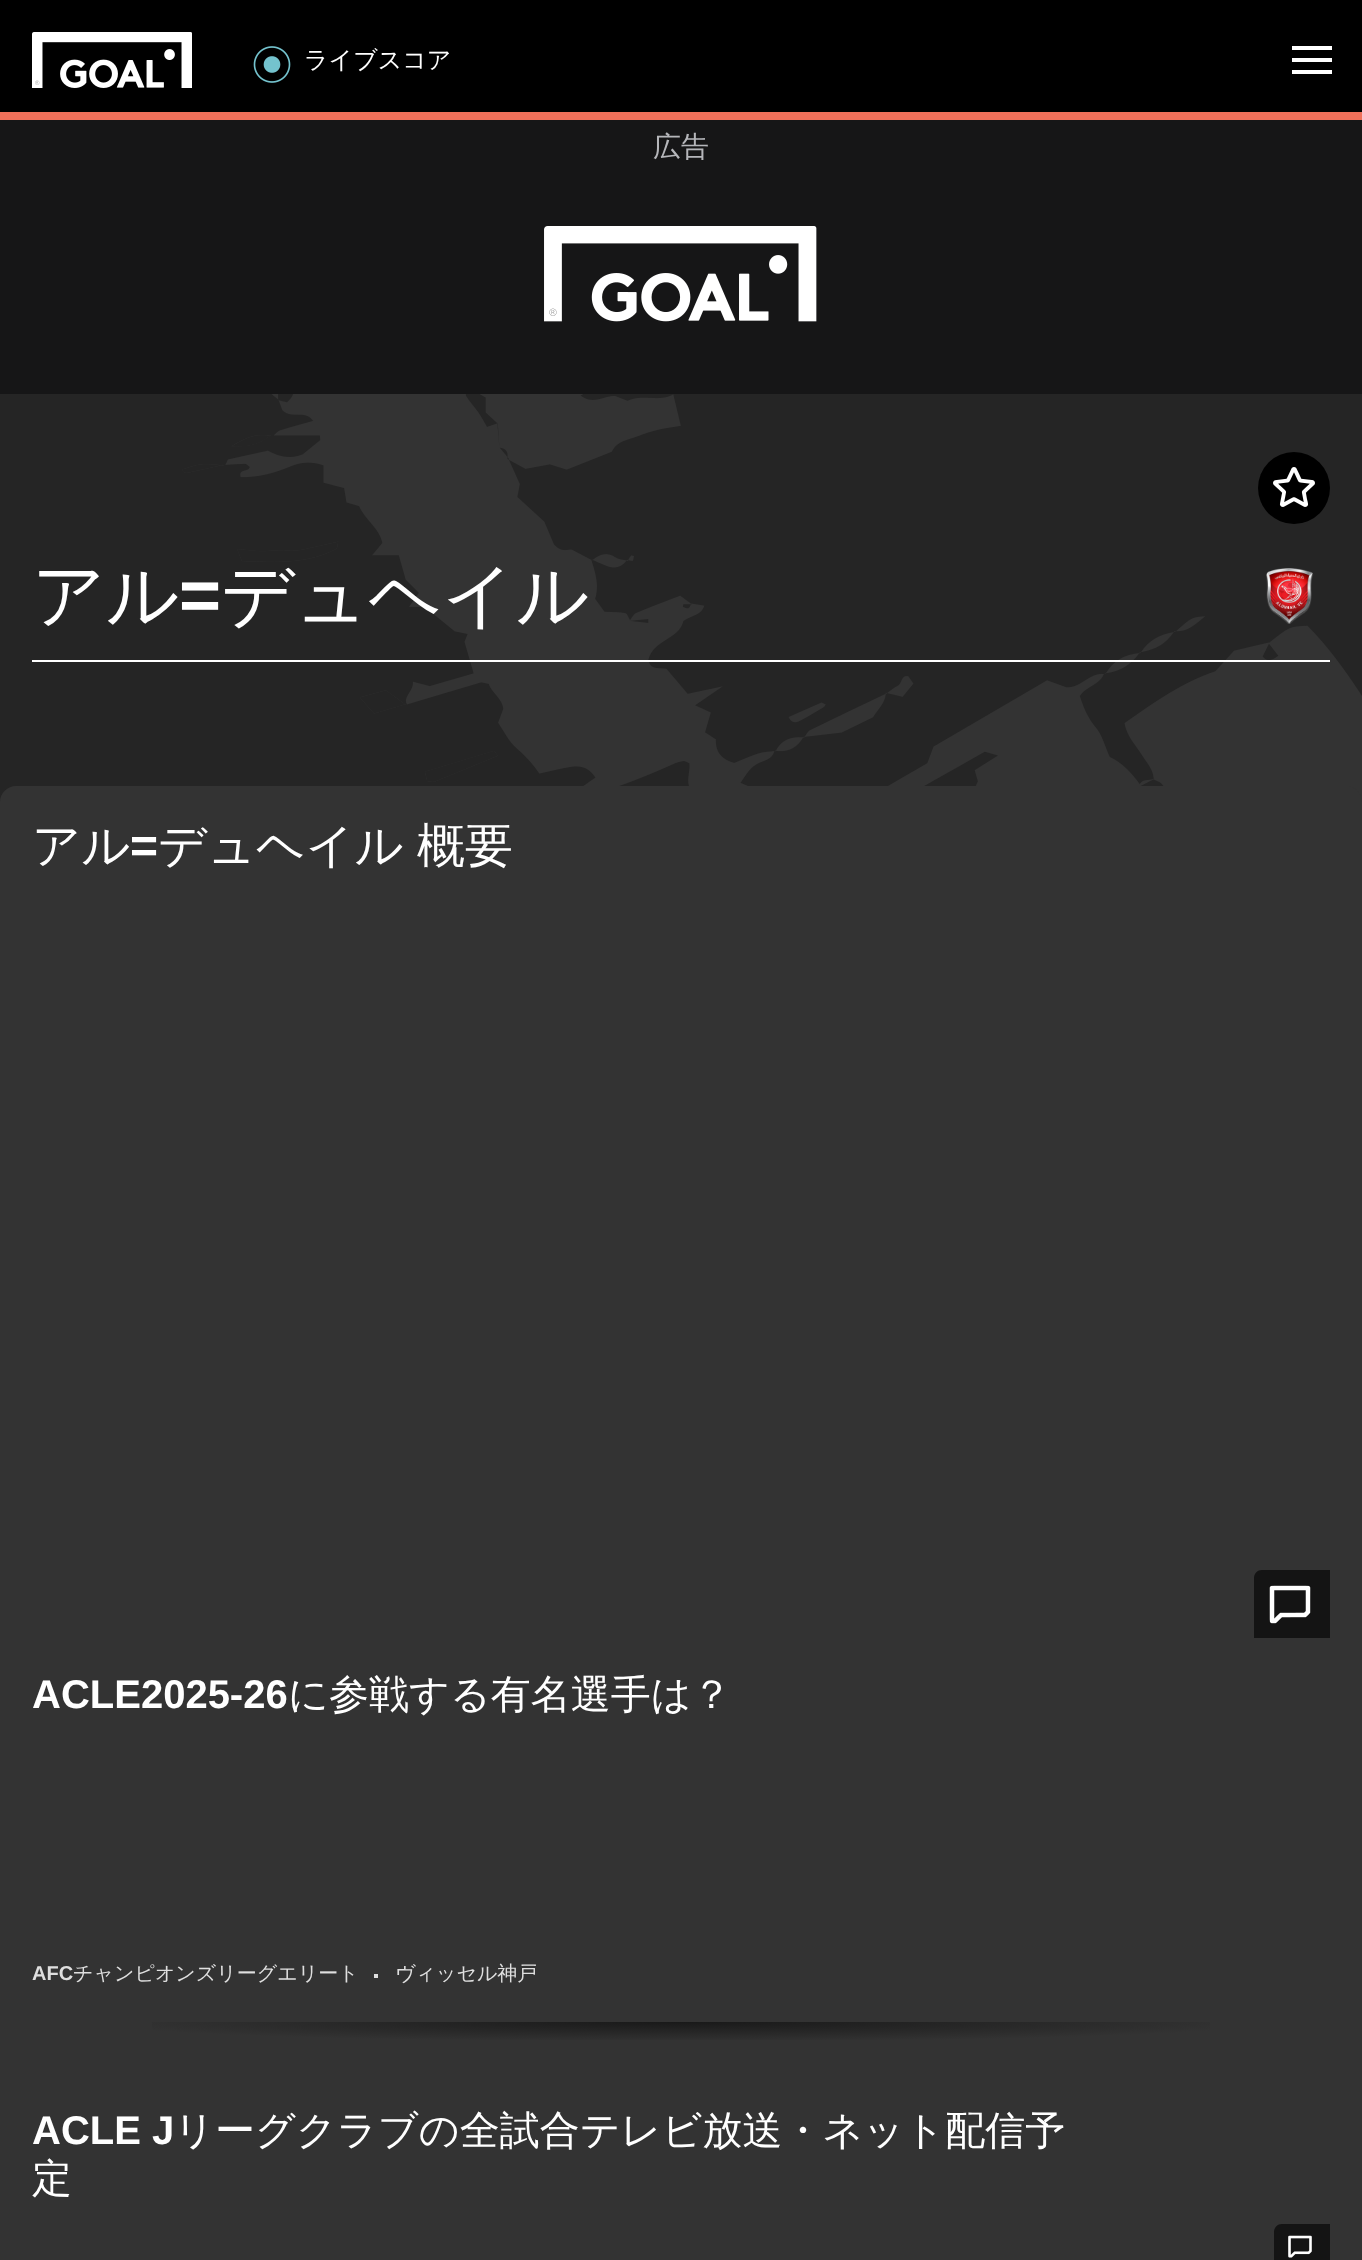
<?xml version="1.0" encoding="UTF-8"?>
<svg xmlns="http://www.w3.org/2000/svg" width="1362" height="2260">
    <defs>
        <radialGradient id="g1" gradientUnits="userSpaceOnUse" cx="0" cy="0" r="1" gradientTransform="matrix(1168 0 0 40 681 2022)"><stop offset="0" stop-color="#191919"/><stop offset="0.25" stop-color="#262626"/><stop offset="0.5" stop-color="#333333"/></radialGradient>
    </defs>
    <rect width="100%" height="100%" fill="#333333"/>
    <rect x="0" y="0" width="1362" height="112" fill="#000000"/>
    <rect x="0" y="112" width="1362" height="8" fill="#F0705A"/>
    <image x="32" y="32" width="160" height="56" href="img_01.png"/>
    <image x="253" y="46" width="38" height="37" href="img_02.png"/>
    <text x="304" y="68" font-family="WenQuanYi Zen Hei" font-size="24" font-weight="500" fill="#FFFFFF">ライブスコア</text>
    <rect x="1292" y="46" width="40" height="4" fill="#FFFFFF"/>
    <rect x="1292" y="58" width="40" height="4" fill="#FFFFFF"/>
    <rect x="1292" y="70" width="40" height="4" fill="#FFFFFF"/>
    <rect x="0" y="120" width="1362" height="274" fill="#161617"/>
    <text x="653" y="156" font-family="WenQuanYi Zen Hei" font-size="28" font-weight="500" fill="#B5B6BA">広告</text>
    <image x="544" y="226" width="273" height="96" href="img_03.png"/>
    <image x="0" y="394" width="1362" height="408" href="img_04.png"/>
    <rect x="32" y="660" width="1298" height="2" fill="#FFFFFF"/>
    <circle cx="1294" cy="488" r="36" fill="#000000"/>
    <image x="1273" y="467" width="42" height="40" href="img_05.png"/>
    <text x="32" y="620" font-family="WenQuanYi Zen Hei" font-size="72" font-weight="500" fill="#FFFFFF">アル</text>
    <text x="179" y="620" font-family="Liberation Sans" font-size="72" font-weight="700" fill="#FFFFFF">=</text>
    <text x="221" y="620" font-family="WenQuanYi Zen Hei" font-size="72" font-weight="500" fill="#FFFFFF">デュヘイル</text>
    <image x="1266" y="568" width="48" height="56" href="img_06.png"/>
    <rect x="0" y="786" width="1362" height="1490" rx="16" fill="#333333"/>
    <text x="32" y="862" font-family="WenQuanYi Zen Hei" font-size="48" font-weight="500" fill="#FFFFFF">アル</text>
    <text x="130" y="862" font-family="Liberation Sans" font-size="48" font-weight="700" fill="#FFFFFF">=</text>
    <text x="158" y="862" word-spacing="-1" font-family="WenQuanYi Zen Hei" font-size="48" font-weight="500" fill="#FFFFFF">デュヘイル 概要</text>
    <path d="M 1262 1570 H 1330 V 1638 H 1254 V 1578 C 1254 1573.5 1257.5 1570 1262 1570 Z" fill="#141414"/>
    <image x="1269" y="1585" width="42" height="39" href="img_07.png"/>
    <text x="32" y="1708" font-family="Liberation Sans" font-size="40" font-weight="700" fill="#FFFFFF">ACLE2025-26</text>
    <text x="288" y="1708" font-family="WenQuanYi Zen Hei" font-size="40" font-weight="500" fill="#FFFFFF">に参戦する有名選手は？</text>
    <text x="32" y="1980" font-family="Liberation Sans" font-size="20" font-weight="700" fill="#DFDFDF">AFC</text>
    <text x="73" y="1980" font-family="WenQuanYi Zen Hei" font-size="20" font-weight="500" fill="#DFDFDF">チャンピオンズリーグエリート</text>
    <rect x="374" y="1974" width="4" height="4" fill="#DFDFDF"/>
    <text x="395" y="1980" font-family="WenQuanYi Zen Hei" font-size="20" font-weight="500" fill="#DFDFDF">ヴィッセル神戸</text>
    <rect x="152" y="2022" width="1058" height="18" fill="url(#g1)"/>
    <text x="32" y="2144" font-family="Liberation Sans" font-size="40" font-weight="700" fill="#FFFFFF">ACLE J</text>
    <text x="174" y="2144" font-family="WenQuanYi Zen Hei" font-size="40" font-weight="500" fill="#FFFFFF">リーグクラブの全試合テレビ放送・ネット配信予</text>
    <text x="32" y="2192" font-family="WenQuanYi Zen Hei" font-size="40" font-weight="500" fill="#FFFFFF">定</text>
    <path d="M 1282 2224 H 1330 V 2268 H 1274 V 2232 C 1274 2227.5 1277.5 2224 1282 2224 Z" fill="#141414"/>
    <image x="1288" y="2235" width="24" height="23" href="img_08.png"/>
</svg>
